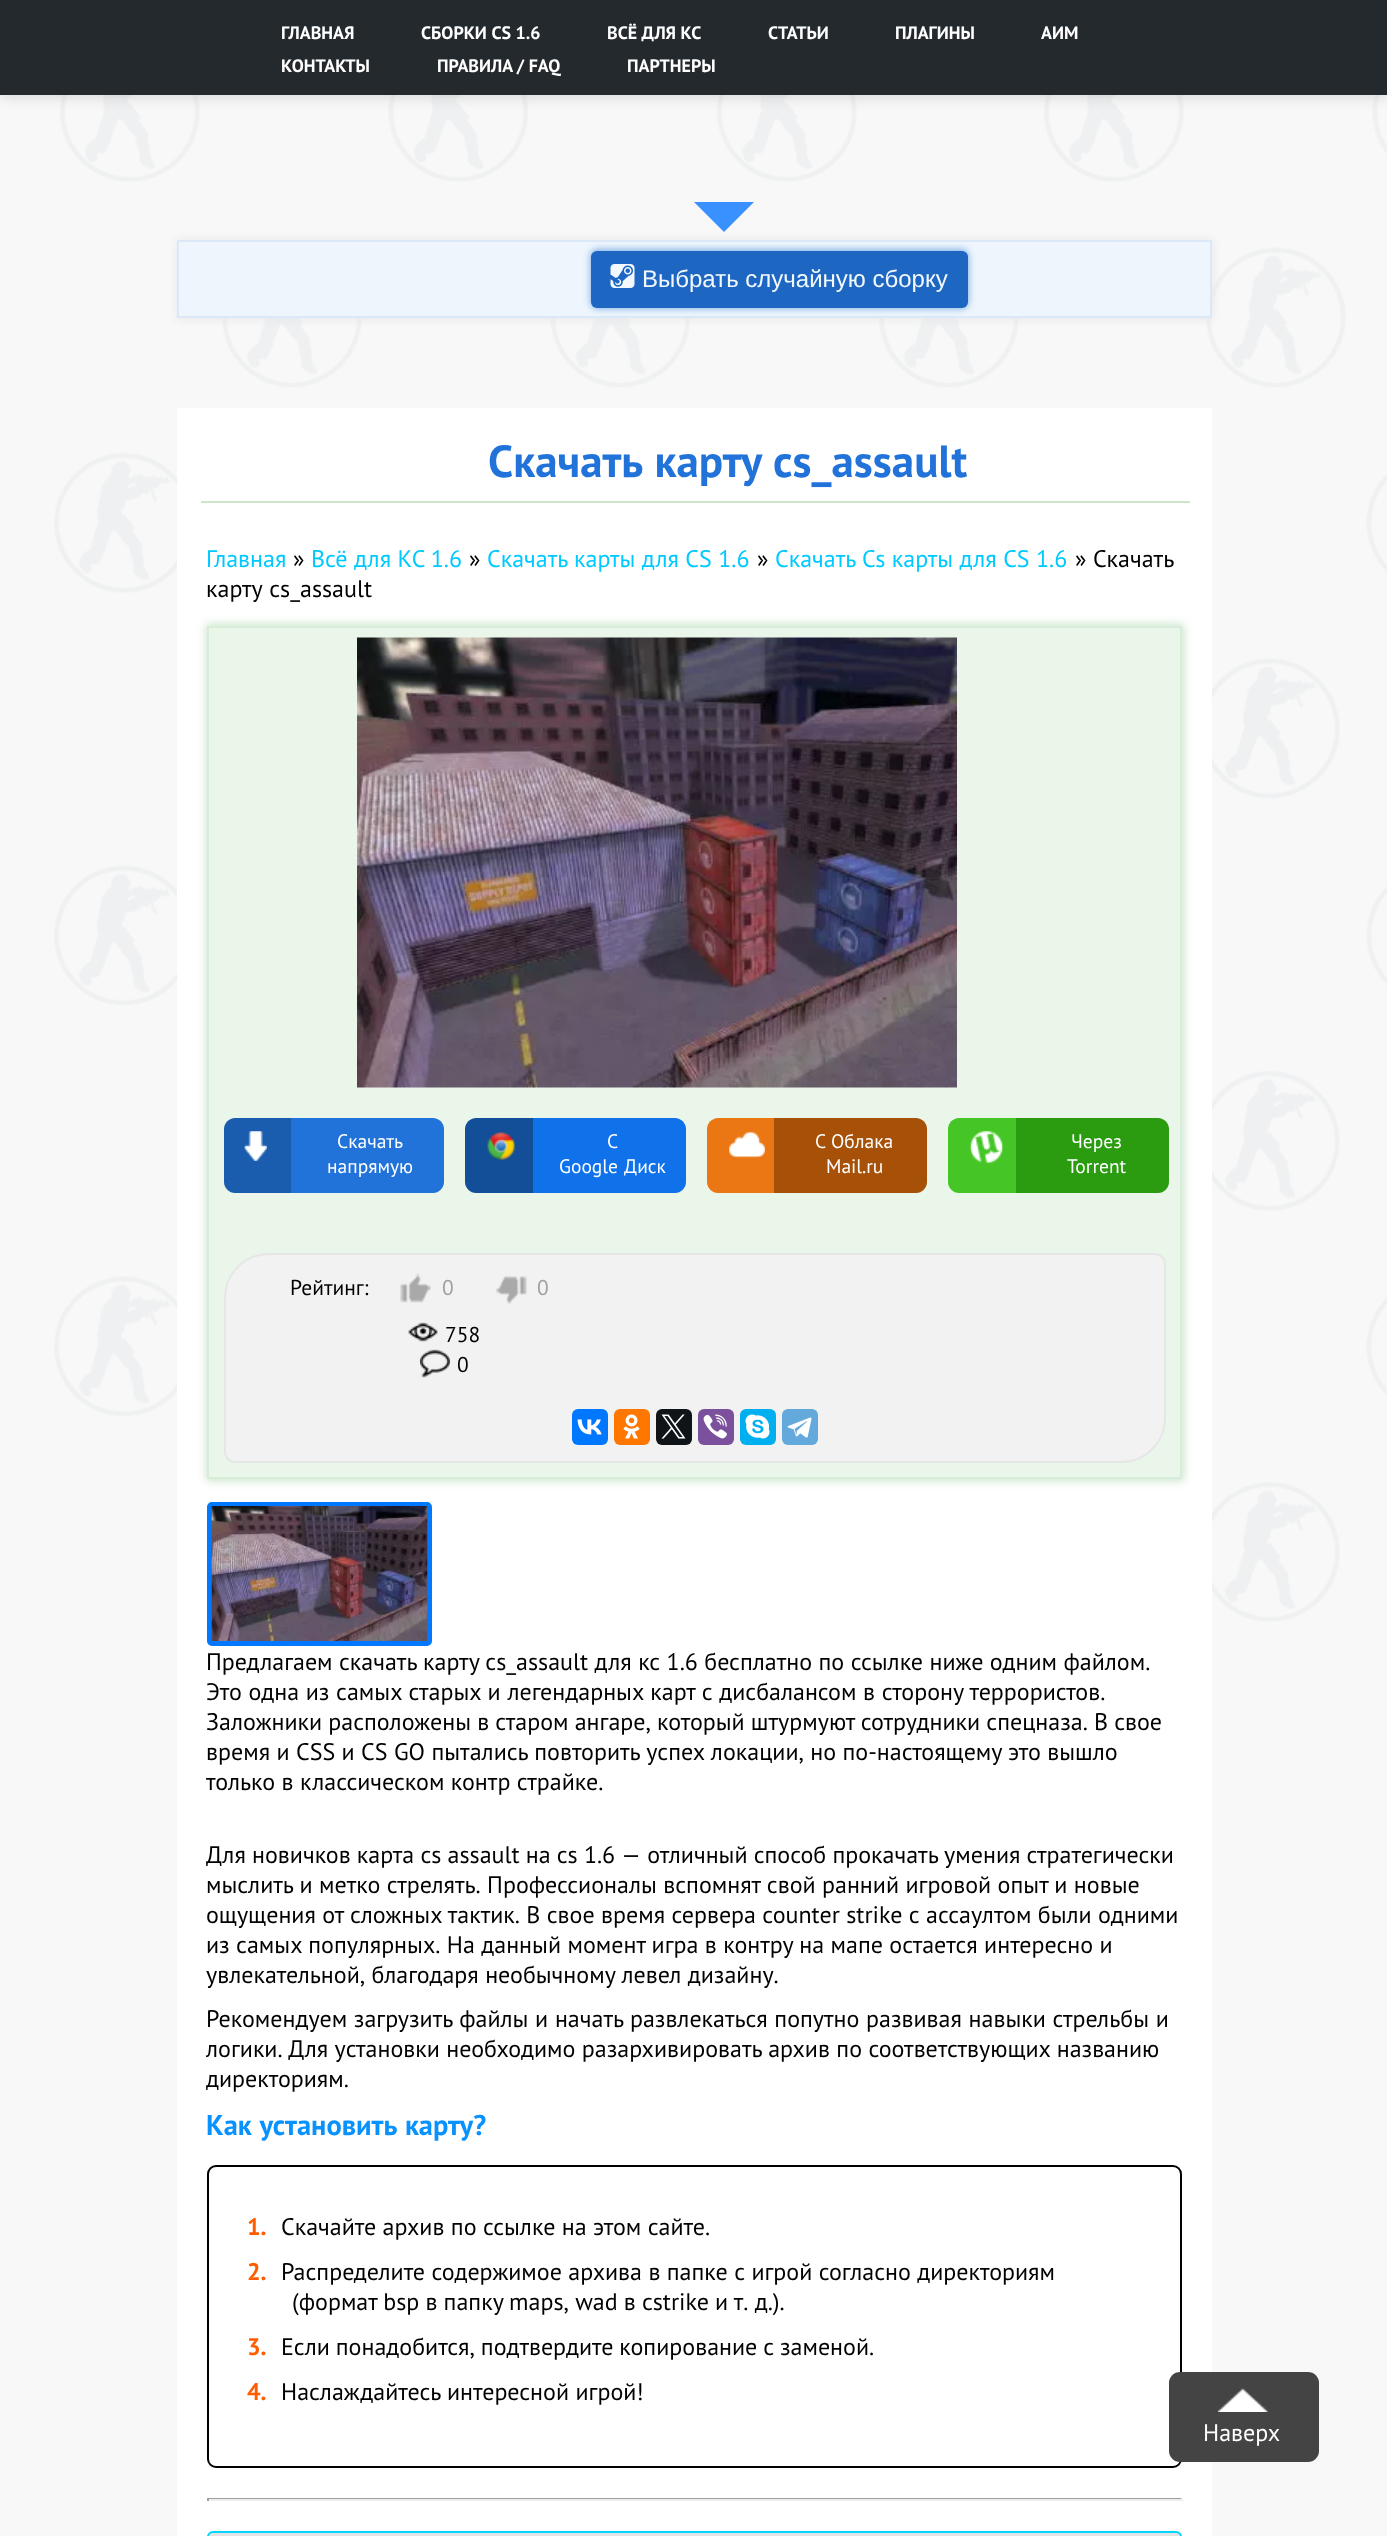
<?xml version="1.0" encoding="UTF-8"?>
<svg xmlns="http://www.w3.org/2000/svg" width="1387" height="2536">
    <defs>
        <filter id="blur1" x="-50%" y="-200%" width="200%" height="500%"><feGaussianBlur stdDeviation="7.5"/></filter>
        <filter id="blur2" x="-50%" y="-200%" width="200%" height="500%"><feGaussianBlur stdDeviation="4"/></filter>
        <filter id="blur3" x="-50%" y="-200%" width="200%" height="500%"><feGaussianBlur stdDeviation="3"/></filter>
    </defs>
    <rect width="100%" height="100%" fill="#F8F8F8"/>
    <image x="54" y="95" width="1333" height="1527" href="img_01.png"/>
    <rect x="0" y="-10" width="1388" height="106" fill="#000000" fill-opacity="0.15" filter="url(#blur1)"/>
    <rect x="0" y="0" width="1387" height="95" fill="#24292E"/>
    <text x="281" y="39" font-family="PT Sans" font-size="18" font-weight="700" fill="#FFFFFF">ГЛАВНАЯ</text>
    <text x="421" y="39" font-family="PT Sans" font-size="18" font-weight="700" fill="#FFFFFF">СБОРКИ CS 1.6</text>
    <text x="607" y="39" font-family="PT Sans" font-size="18" font-weight="700" fill="#FFFFFF">ВСЁ ДЛЯ КС</text>
    <text x="768" y="39" font-family="PT Sans" font-size="18" font-weight="700" fill="#FFFFFF">СТАТЬИ</text>
    <text x="895" y="39" font-family="PT Sans" font-size="18" font-weight="700" fill="#FFFFFF">ПЛАГИНЫ</text>
    <text x="1041" y="39" font-family="PT Sans" font-size="18" font-weight="700" fill="#FFFFFF">АИМ</text>
    <text x="281" y="72" font-family="PT Sans" font-size="18" font-weight="700" fill="#FFFFFF">КОНТАКТЫ</text>
    <text x="437" y="72" font-family="PT Sans" font-size="18" font-weight="700" fill="#FFFFFF">ПРАВИЛА / FAQ</text>
    <text x="627" y="72" font-family="PT Sans" font-size="18" font-weight="700" fill="#FFFFFF">ПАРТНЕРЫ</text>
    <path d="M 694 202 H 754 L 724 232 Z" fill="#3990FF"/>
    <rect x="176" y="239" width="1038" height="81" fill="#E3E4E8" fill-opacity="0.7" filter="url(#blur2)"/>
    <rect x="178" y="241" width="1033" height="76" fill="#EEF5FC" stroke="#DAE8F8" stroke-width="2"/>
    <rect x="590" y="249" width="379" height="60" rx="8" fill="#2173D9" fill-opacity="0.5" filter="url(#blur3)"/>
    <rect x="591" y="251" width="377" height="57" rx="6" fill="#1D67C3"/>
    <image x="610" y="264" width="25" height="24" href="img_02.png"/>
    <text x="642" y="287" font-family="Liberation Sans" font-size="24" fill="#F3F8FD">Выбрать случайную сборку</text>
    <rect x="177" y="408" width="1035" height="2128" fill="#FFFFFF"/>
    <rect x="201" y="501" width="989" height="2" fill="#CCE6CC"/>
    <text x="488" y="477" word-spacing="1" font-family="PT Sans" font-size="45" font-weight="700" fill="#2173D9">Скачать карту cs_assault</text>
    <text x="206" y="567" font-family="PT Sans" font-size="24" fill="#00C9FF">Главная</text>
    <text x="293" y="567" font-family="PT Sans" font-size="24" fill="#000000">»</text>
    <text x="311" y="567" font-family="PT Sans" font-size="24" fill="#00C9FF">Всё для КС 1.6</text>
    <text x="469" y="567" font-family="PT Sans" font-size="24" fill="#000000">»</text>
    <text x="487" y="567" font-family="PT Sans" font-size="24" fill="#00C9FF">Скачать карты для CS 1.6</text>
    <text x="757" y="567" font-family="PT Sans" font-size="24" fill="#000000">»</text>
    <text x="775" y="567" font-family="PT Sans" font-size="24" fill="#00C9FF">Скачать Cs карты для CS 1.6</text>
    <text x="1075" y="567" font-family="PT Sans" font-size="24" fill="#000000">» Скачать</text>
    <text x="206" y="597" word-spacing="1" font-family="PT Sans" font-size="24" fill="#000000">карту cs_assault</text>
    <rect x="206" y="624" width="978" height="857" fill="#008000" fill-opacity="0.2" filter="url(#blur2)"/>
    <rect x="208" y="627" width="973" height="851" fill="#EBF6EB" stroke="#D8EDD8" stroke-width="2"/>
    <image x="357" y="637" width="600" height="451" href="img_03.png"/>
    <path d="M 235 1118 H 291 V 1193 H 235 C 229 1193 224 1188 224 1182 V 1129 C 224 1123 229 1118 235 1118 Z" fill="#1A5DAE"/>
    <path d="M 291 1118 H 433 C 439 1118 444 1123 444 1129 V 1182 C 444 1188 439 1193 433 1193 H 291 Z" fill="#2173D9"/>
    <image x="244" y="1131" width="23" height="30" href="img_04.png"/>
    <text x="337" y="1148" font-family="PT Sans" font-size="19.5" fill="#FFFFFF">Скачать</text>
    <text x="327" y="1173" font-family="PT Sans" font-size="19.5" fill="#FFFFFF">напрямую</text>
    <path d="M 476 1118 H 533 V 1193 H 476 C 470 1193 465 1188 465 1182 V 1129 C 465 1123 470 1118 476 1118 Z" fill="#134F98"/>
    <path d="M 533 1118 H 675 C 681 1118 686 1123 686 1129 V 1182 C 686 1188 681 1193 675 1193 H 533 Z" fill="#1072EB"/>
    <image x="486" y="1132" width="30" height="29" href="img_05.png"/>
    <text x="607" y="1148" font-family="PT Sans" font-size="19.5" fill="#FFFFFF">C</text>
    <text x="559" y="1173" word-spacing="1" font-family="PT Sans" font-size="19.5" fill="#FFFFFF">Google Диск</text>
    <path d="M 718 1118 H 774 V 1193 H 718 C 712 1193 707 1188 707 1182 V 1129 C 707 1123 712 1118 718 1118 Z" fill="#EA7713"/>
    <path d="M 774 1118 H 916 C 922 1118 927 1123 927 1129 V 1182 C 927 1188 922 1193 916 1193 H 774 Z" fill="#A65107"/>
    <image x="729" y="1131" width="36" height="27" href="img_06.png"/>
    <text x="815" y="1148" font-family="PT Sans" font-size="19.5" fill="#FFFFFF">С</text>
    <text x="831" y="1148" font-family="PT Sans" font-size="19.5" fill="#FFFFFF">Облака</text>
    <text x="826" y="1173" font-family="PT Sans" font-size="19.5" fill="#FFFFFF">Mail.ru</text>
    <path d="M 959 1118 H 1016 V 1193 H 959 C 953 1193 948 1188 948 1182 V 1129 C 948 1123 953 1118 959 1118 Z" fill="#45C626"/>
    <path d="M 1016 1118 H 1158 C 1164 1118 1169 1123 1169 1129 V 1182 C 1169 1188 1164 1193 1158 1193 H 1016 Z" fill="#2B9B10"/>
    <image x="970" y="1131" width="34" height="33" href="img_07.png"/>
    <text x="1071" y="1148" font-family="PT Sans" font-size="19.5" fill="#FFFFFF">Через</text>
    <text x="1067" y="1173" font-family="PT Sans" font-size="19.5" fill="#FFFFFF">Torrent</text>
    <path d="M 269 1254 H 1155 C 1160.5 1254 1165 1258.5 1165 1264 V 1418 C 1165 1442.5 1145.5 1462 1121 1462 H 235 C 229.5 1462 225 1457.5 225 1452 V 1298 C 225 1273.5 244.5 1254 269 1254 Z" fill="#F2F2F2" stroke="#E6E6E6" stroke-width="2"/>
    <text x="290" y="1295" font-family="PT Sans" font-size="21.5" fill="#000000">Рейтинг:</text>
    <image x="400" y="1273" width="31" height="30" href="img_08.png"/>
    <text x="442" y="1295" font-family="PT Sans" font-size="21.5" fill="#A0A0A0">0</text>
    <image x="496" y="1276" width="31" height="28" href="img_09.png"/>
    <text x="537" y="1295" font-family="PT Sans" font-size="21.5" fill="#A0A0A0">0</text>
    <image x="408" y="1322" width="30" height="20" href="img_10.png"/>
    <text x="445" y="1342" font-family="PT Sans" font-size="21.5" fill="#000000">758</text>
    <image x="420" y="1349" width="30" height="29" href="img_11.png"/>
    <text x="457" y="1372" font-family="PT Sans" font-size="21.5" fill="#000000">0</text>
    <rect x="572" y="1409" width="36" height="36" rx="6" fill="#0077FF"/>
    <image x="577" y="1419" width="25" height="16" href="img_12.png"/>
    <rect x="614" y="1409" width="36" height="36" rx="6" fill="#FF7700"/>
    <image x="623" y="1414" width="17" height="25" href="img_13.png"/>
    <rect x="656" y="1409" width="36" height="36" rx="6" fill="#0F1419"/>
    <image x="661" y="1414" width="25" height="25" href="img_14.png"/>
    <rect x="698" y="1409" width="36" height="36" rx="6" fill="#7B519D"/>
    <image x="703" y="1414" width="24" height="25" href="img_15.png"/>
    <rect x="740" y="1409" width="36" height="36" rx="6" fill="#00AFF0"/>
    <image x="745" y="1414" width="25" height="25" href="img_16.png"/>
    <rect x="782" y="1409" width="36" height="36" rx="6" fill="#64A9DC"/>
    <image x="787" y="1417" width="25" height="21" href="img_17.png"/>
    <rect x="209.5" y="1504.5" width="220" height="139" rx="2.5" fill="none" stroke="#0277FF" stroke-width="5"/>
    <image x="211" y="1506" width="217" height="135" href="img_18.png"/>
    <text font-family="PT Sans" font-size="24" fill="#000000">
        <tspan x="206" y="1670">Предлагаем скачать карту cs_assault для кс 1.6 бесплатно по ссылке ниже одним файлом.</tspan>
        <tspan x="206" y="1700" word-spacing="0.25">Это одна из самых старых и легендарных карт с дисбалансом в сторону террористов.</tspan>
        <tspan x="206" y="1730" word-spacing="-0.25">Заложники расположены в старом ангаре, который штурмуют сотрудники спецназа. В свое</tspan>
        <tspan x="206" y="1760">время и CSS и CS GO пытались повторить успех локации, но по-настоящему это вышло</tspan>
        <tspan x="206" y="1790">только в классическом контр страйке.</tspan>
    </text>
    <text font-family="PT Sans" font-size="24" fill="#000000">
        <tspan x="206" y="1863" word-spacing="-0.25">Для новичков карта cs assault на cs 1.6 — отличный способ прокачать умения стратегически</tspan>
        <tspan x="206" y="1893">мыслить и метко стрелять. Профессионалы вспомнят свой ранний игровой опыт и новые</tspan>
        <tspan x="206" y="1923">ощущения от сложных тактик. В свое время сервера counter strike с ассаултом были одними</tspan>
        <tspan x="206" y="1953">из самых популярных. На данный момент игра в контру на мапе остается интересно и</tspan>
        <tspan x="206" y="1983">увлекательной, благодаря необычному левел дизайну.</tspan>
        <tspan x="206" y="2027" word-spacing="0.25">Рекомендуем загрузить файлы и начать развлекаться попутно развивая навыки стрельбы и</tspan>
        <tspan x="206" y="2057">логики. Для установки необходимо разархивировать архив по соответствующих названию</tspan>
        <tspan x="206" y="2087">директориям.</tspan>
    </text>
    <text x="206" y="2135" word-spacing="1" font-family="PT Sans" font-size="28.5" font-weight="700" fill="#0892FF">Как установить карту?</text>
    <rect x="208" y="2166" width="973" height="301" rx="8" fill="none" stroke="#000000" stroke-width="2"/>
    <text x="247" y="2235" font-family="PT Sans" font-size="24" font-weight="700" fill="#FF5C00">1.</text>
    <text x="281" y="2235" font-family="PT Sans" font-size="24" fill="#000000">Скачайте архив по ссылке на этом сайте.</text>
    <text x="247" y="2280" font-family="PT Sans" font-size="24" font-weight="700" fill="#FF5C00">2.</text>
    <text x="281" y="2280" font-family="PT Sans" font-size="24" fill="#000000">Распределите содержимое архива в папке с игрой согласно директориям</text>
    <text x="292" y="2310" word-spacing="-0.25" font-family="PT Sans" font-size="24" fill="#000000">(формат bsp в папку maps, wad в cstrike и т. д.).</text>
    <text x="247" y="2355" font-family="PT Sans" font-size="24" font-weight="700" fill="#FF5C00">3.</text>
    <text x="281" y="2355" word-spacing="-0.5" font-family="PT Sans" font-size="24" fill="#000000">Если понадобится, подтвердите копирование с заменой.</text>
    <text x="247" y="2400" font-family="PT Sans" font-size="24" font-weight="700" fill="#FF5C00">4.</text>
    <text x="281" y="2400" font-family="PT Sans" font-size="24" fill="#000000">Наслаждайтесь интересной игрой!</text>
    <rect x="207" y="2498" width="975" height="1" fill="#9F9F9F"/>
    <rect x="1181" y="2498" width="2" height="3" fill="#EEEEEE"/>
    <rect x="207" y="2499" width="975" height="2" fill="#EEEEEE"/>
    <rect x="207" y="2498" width="2" height="3" fill="#9F9F9F"/>
    <rect x="208" y="2532" width="973" height="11" rx="5" fill="#E4E4E4" stroke="#00D6FF" stroke-width="2"/>
    <rect x="1169" y="2372" width="150" height="90" rx="11" fill="#444444"/>
    <image x="1218" y="2388" width="50" height="24" href="img_19.png"/>
    <text x="1203" y="2441" font-family="PT Sans" font-size="24" fill="#FFFFFF">Наверх</text>
</svg>
